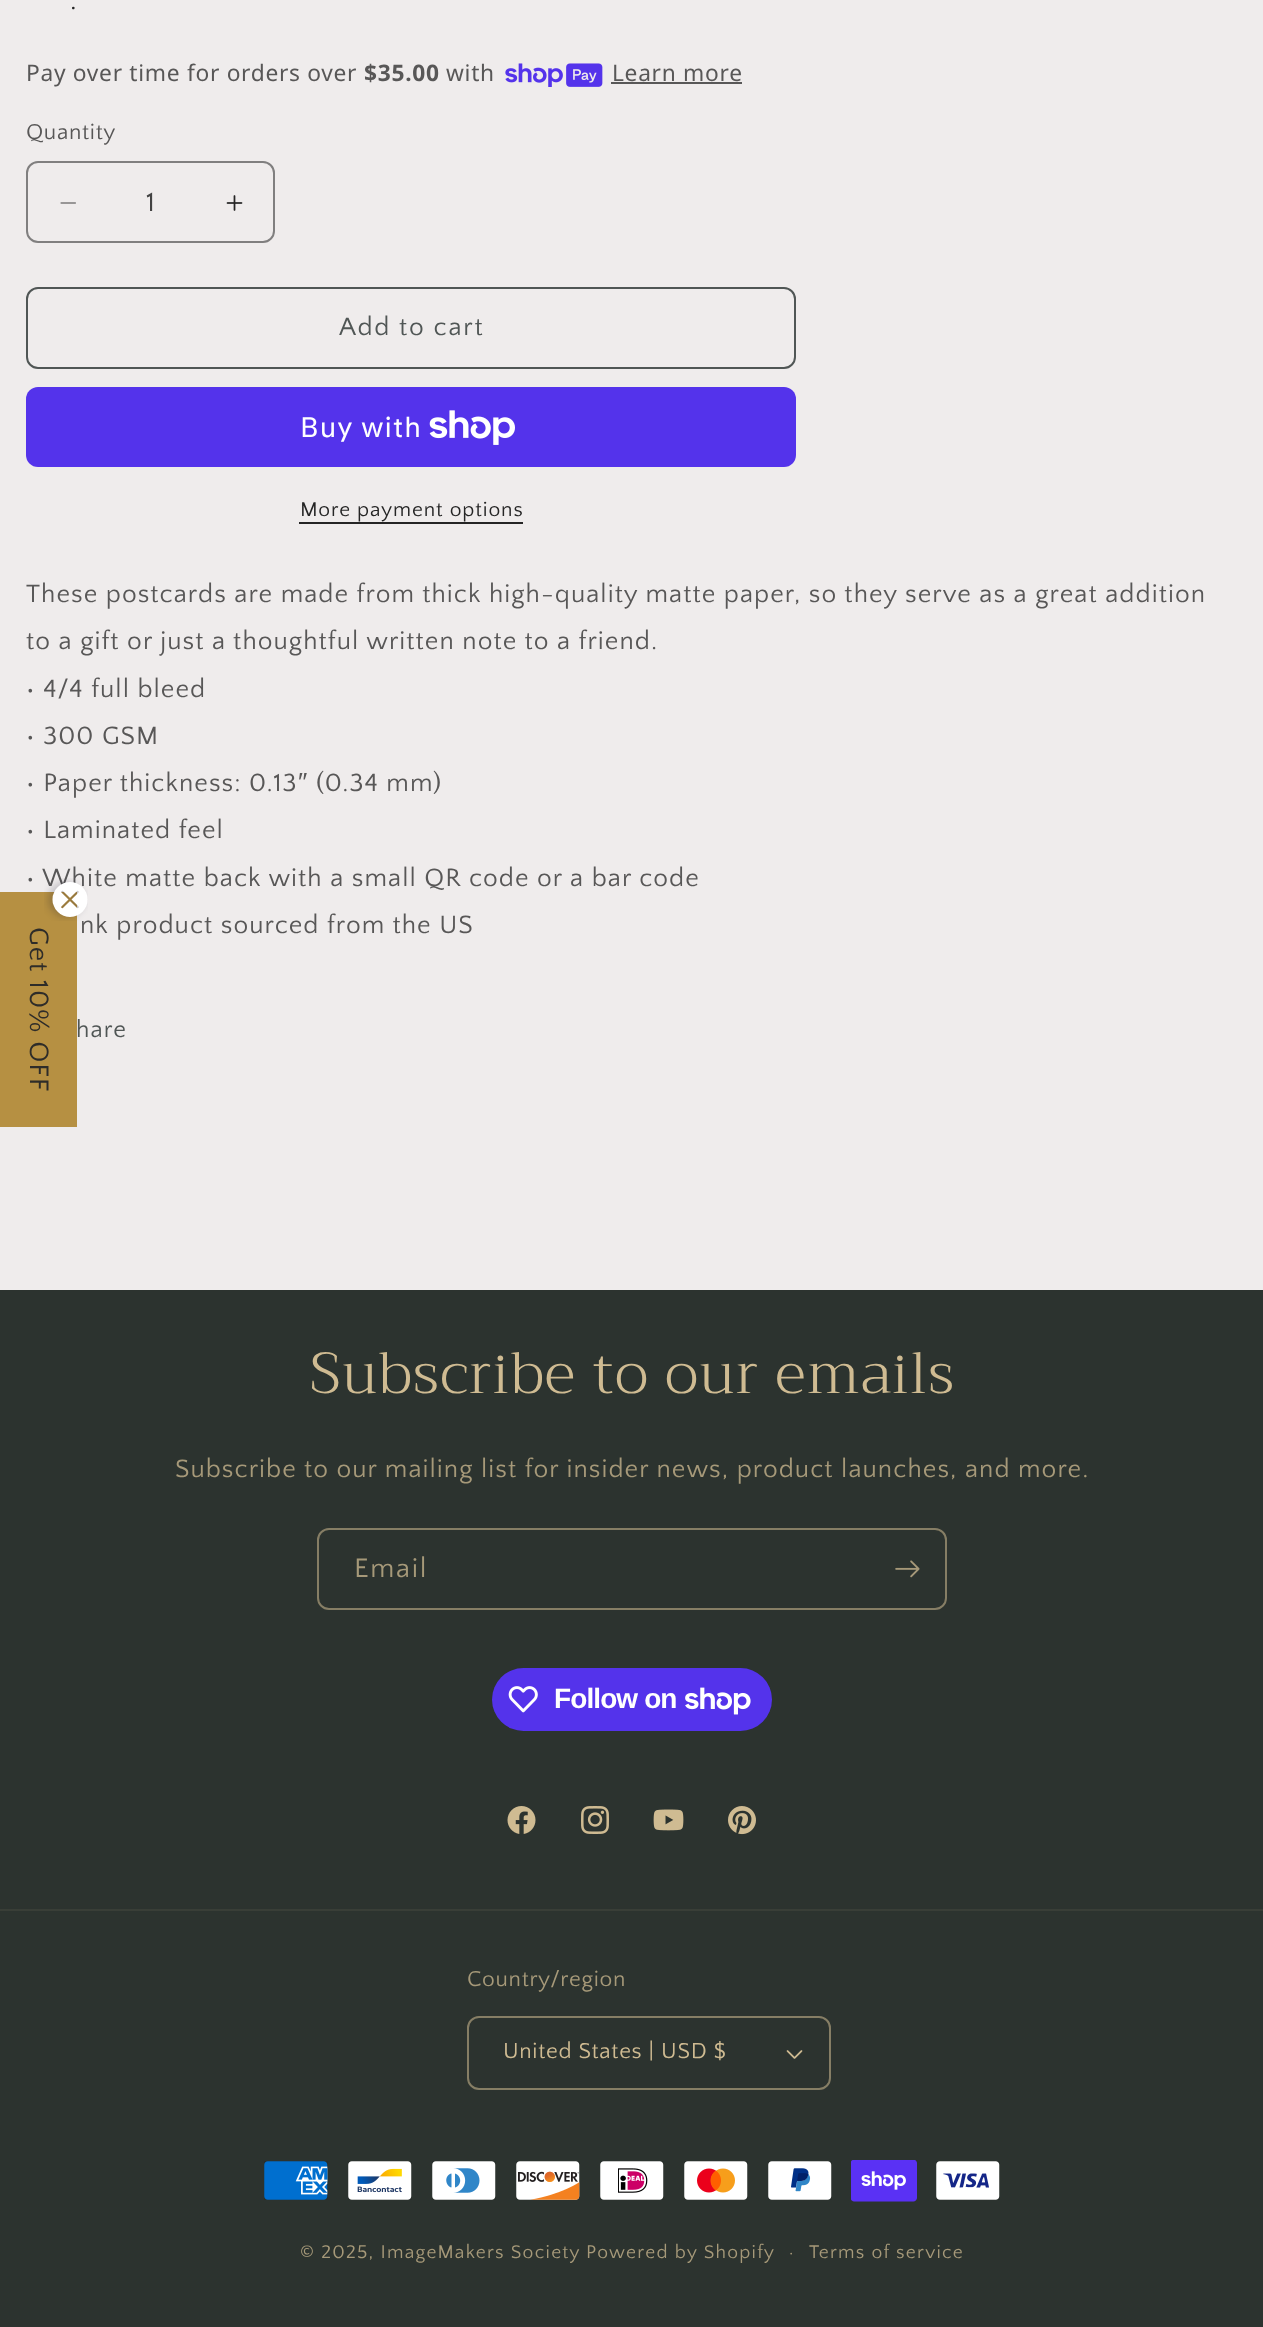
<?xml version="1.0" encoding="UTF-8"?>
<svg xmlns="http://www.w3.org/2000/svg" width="1263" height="2327">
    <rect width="100%" height="100%" fill="#EFECEC"/>
    <text x="70" y="9" font-family="Quattrocento Sans" font-size="28" letter-spacing="2" fill="#252525">.</text>
    <text x="26" y="81" font-family="Noto Sans" font-size="22.75" letter-spacing="0.7" fill="#585757">Pay over time for orders over</text>
    <text x="364" y="81" font-family="Noto Sans" font-size="22.75" font-weight="700" letter-spacing="0.7" fill="#585757">$35.00</text>
    <text x="446" y="81" font-family="Noto Sans" font-size="22.75" letter-spacing="0.7" fill="#585757">with</text>
    <image x="505" y="63" width="98" height="24" href="img_01.png"/>
    <text x="612" y="81" font-family="Noto Sans" font-size="22.75" letter-spacing="0.7" fill="#585757">Learn more</text>
    <rect x="611" y="82" width="131" height="2" fill="#585757"/>
    <text x="26" y="139" font-family="Quattrocento Sans" font-size="22.75" letter-spacing="0.7" fill="#585757">Quantity</text>
    <image x="60" y="202" width="16" height="2" href="img_02.png"/>
    <image x="226" y="195" width="17" height="16" href="img_03.png"/>
    <rect x="27" y="162" width="247" height="80" rx="11" fill="none" stroke="#807F7F" stroke-width="2"/>
    <text x="146" y="211" font-family="Quattrocento Sans" font-size="28" fill="#434343">1</text>
    <rect x="27" y="288" width="768" height="80" rx="11" fill="none" stroke="#505655" stroke-width="2"/>
    <text x="339" y="335" font-family="Quattrocento Sans" font-size="26.25" letter-spacing="1.75" fill="#505655">Add to cart</text>
    <rect x="26" y="387" width="770" height="80" rx="12" fill="#5433EB"/>
    <text x="300" y="437" font-family="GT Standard" font-size="28" letter-spacing="1.05" fill="#FFFFFF">Buy with</text>
    <image x="429" y="410" width="86" height="35" href="img_04.png"/>
    <text x="300" y="516" font-family="Quattrocento Sans" font-size="21" letter-spacing="0.9" fill="#252525">More payment options</text>
    <rect x="299" y="522" width="224" height="2" fill="#252525"/>
    <text font-family="Quattrocento Sans" font-size="26.25" letter-spacing="1.05" fill="#585757">
        <tspan x="26" y="602">These postcards are made from thick high-quality matte paper, so they serve as a great addition</tspan>
        <tspan x="26" y="649">to a gift or just a thoughtful written note to a friend.</tspan>
        <tspan x="26" y="697">• 4/4 full bleed</tspan>
        <tspan x="26" y="744">• 300 GSM</tspan>
        <tspan x="26" y="791">• Paper thickness: 0.13</tspan>
    </text>
    <text x="298" y="791" font-family="Liberation Sans" font-size="26.25" letter-spacing="1.05" fill="#585757">″</text>
    <text x="316" y="791" font-family="Quattrocento Sans" font-size="26.25" letter-spacing="1.05" fill="#585757">(0.34 mm)</text>
    <text font-family="Quattrocento Sans" font-size="26.25" letter-spacing="1.05" fill="#585757">
        <tspan x="26" y="838">• Laminated feel</tspan>
        <tspan x="26" y="886">• White matte back with a small QR code or a bar code</tspan>
    </text>
    <text x="80" y="933" font-family="Quattrocento Sans" font-size="26.25" letter-spacing="1.05" fill="#585757">nk product sourced from the US</text>
    <text x="76" y="1037" font-family="Quattrocento Sans" font-size="24.5" letter-spacing="1.05" fill="#505655">hare</text>
    <rect x="0" y="892" width="77" height="235" fill="#B69042"/>
    <image x="44" y="878" width="44" height="43" href="img_05.png"/>
    <text x="30" y="927" transform="rotate(90 30 927)" font-family="Quattrocento Sans" font-size="28" letter-spacing="1.05" fill="#2E2C29">Get 10% OFF</text>
    <rect x="0" y="1290" width="1263" height="1037" fill="#2C332F"/>
    <text x="310" y="1393" font-family="Trirong" font-size="57.75" font-weight="300" letter-spacing="1.2" fill="#CFBB92">Subscribe to our emails</text>
    <text x="175" y="1477" font-family="Quattrocento Sans" font-size="26.25" letter-spacing="1.05" fill="#A69979">Subscribe to our mailing list for insider news, product launches, and more.</text>
    <rect x="318" y="1529" width="628" height="80" rx="11" fill="none" stroke="#867E65" stroke-width="2"/>
    <text x="354" y="1577" font-family="Quattrocento Sans" font-size="28" letter-spacing="1.75" fill="#A69979">Email</text>
    <image x="895" y="1560" width="25" height="18" href="img_06.png"/>
    <rect x="492" y="1668" width="280" height="63" rx="31.5" fill="#5433EB"/>
    <image x="508" y="1686" width="30" height="27" href="img_07.png"/>
    <text x="554" y="1708" font-family="Liberation Sans" font-size="28" font-weight="700" letter-spacing="-0.9" fill="#FFFFFF">Follow on</text>
    <image x="685" y="1687" width="66" height="28" href="img_08.png"/>
    <image x="507" y="1806" width="29" height="28" href="img_09.png"/>
    <image x="581" y="1806" width="28" height="28" href="img_10.png"/>
    <image x="653" y="1809" width="31" height="22" href="img_11.png"/>
    <image x="728" y="1806" width="28" height="29" href="img_12.png"/>
    <rect x="0" y="1909" width="1263" height="2" fill="#393E37"/>
    <text x="467" y="1986" font-family="Quattrocento Sans" font-size="22.75" letter-spacing="0.7" fill="#A69979">Country/region</text>
    <image x="786" y="2050" width="17" height="9" href="img_13.png"/>
    <rect x="468" y="2017" width="362" height="72" rx="11" fill="none" stroke="#867E65" stroke-width="2"/>
    <text x="503" y="2058" font-family="Quattrocento Sans" font-size="22.75" letter-spacing="0.7" fill="#CFBB92">United States | USD $</text>
    <image x="264" y="2161" width="64" height="39" href="img_14.png"/>
    <image x="348" y="2161" width="64" height="39" href="img_15.png"/>
    <image x="432" y="2161" width="64" height="39" href="img_16.png"/>
    <image x="516" y="2161" width="64" height="39" href="img_17.png"/>
    <image x="600" y="2161" width="64" height="39" href="img_18.png"/>
    <image x="684" y="2161" width="64" height="39" href="img_19.png"/>
    <image x="768" y="2161" width="64" height="39" href="img_20.png"/>
    <image x="851" y="2160" width="66" height="42" href="img_21.png"/>
    <image x="936" y="2161" width="64" height="39" href="img_22.png"/>
    <text x="300" y="2258" font-family="Quattrocento Sans" font-size="19.25" letter-spacing="1.25" fill="#A69979">© 2025, ImageMakers Society</text>
    <text x="586" y="2258" font-family="Quattrocento Sans" font-size="19.25" letter-spacing="1.25" fill="#A69979">Powered by Shopify</text>
    <text x="789" y="2258" font-family="Quattrocento Sans" font-size="18" letter-spacing="1.25" fill="#A69979">·</text>
    <text x="809" y="2258" font-family="Quattrocento Sans" font-size="19.25" letter-spacing="1.25" fill="#A69979">Terms of service</text>
</svg>
